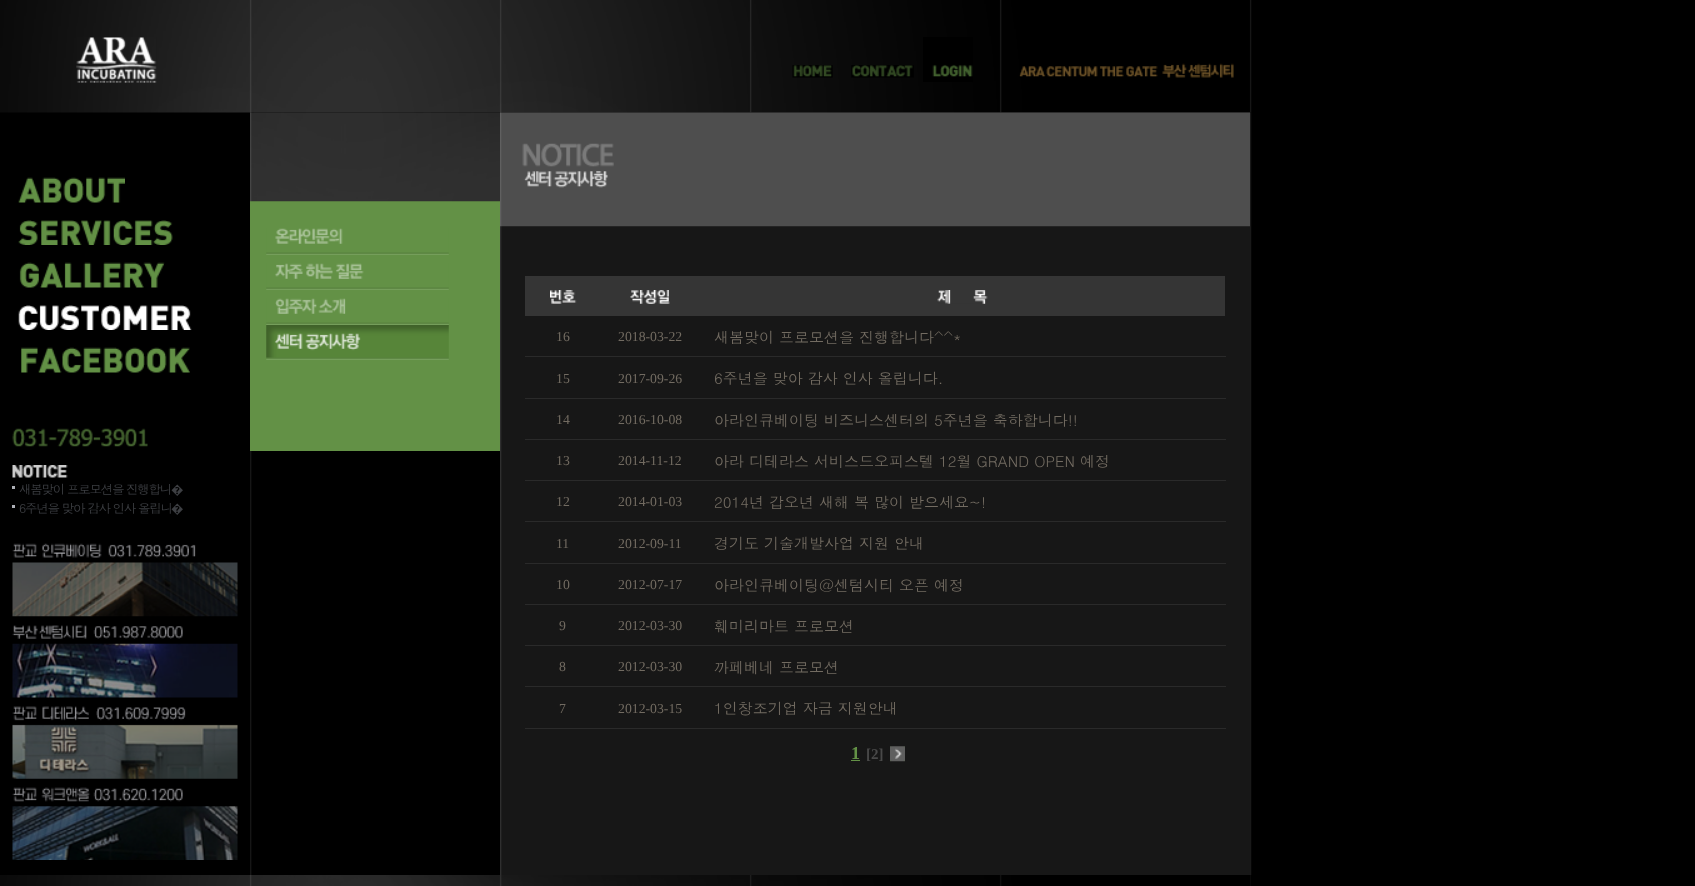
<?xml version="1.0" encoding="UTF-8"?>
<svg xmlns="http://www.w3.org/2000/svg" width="1695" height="886">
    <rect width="100%" height="100%" fill="#000000"/>
    <image x="250" y="112" width="2" height="763" href="img_01.png"/>
    <image x="0" y="0" width="1252" height="113" href="img_02.png"/>
    <image x="76" y="37" width="81" height="46" href="img_03.png"/>
    <image x="792" y="65" width="41" height="13" href="img_04.png"/>
    <image x="851" y="65" width="63" height="13" href="img_05.png"/>
    <image x="923" y="37" width="50" height="45" href="img_06.png"/>
    <image x="1019" y="63" width="215" height="15" href="img_07.png"/>
    <rect x="250" y="201" width="250" height="250" fill="#639146"/>
    <image x="250" y="112" width="250" height="90" href="img_08.png"/>
    <image x="266" y="228" width="183" height="27" href="img_09.png"/>
    <image x="266" y="263" width="183" height="27" href="img_10.png"/>
    <image x="266" y="298" width="183" height="27" href="img_11.png"/>
    <image x="266" y="325" width="183" height="35" href="img_12.png"/>
    <image x="18" y="177" width="107" height="26" href="img_13.png"/>
    <image x="18" y="220" width="155" height="25" href="img_14.png"/>
    <image x="19" y="262" width="146" height="26" href="img_15.png"/>
    <image x="18" y="305" width="174" height="25" href="img_16.png"/>
    <image x="21" y="347" width="169" height="26" href="img_17.png"/>
    <image x="12" y="428" width="136" height="19" href="img_18.png"/>
    <image x="12" y="465" width="56" height="13" href="img_19.png"/>
    <rect x="12" y="486" width="3" height="3" fill="#ADAFB6"/>
    <text x="19" y="494" font-family="Dotum" font-size="12.5" letter-spacing="-1.25" fill="#3D3F43">새봄맞이 프로모션을 진행합니</text>
    <text x="171" y="494" font-family="Noto Sans" font-size="12.5" letter-spacing="-1.25" fill="#3D3F43">�</text>
    <rect x="12" y="505" width="3" height="3" fill="#ADAFB6"/>
    <text x="19" y="513" font-family="Dotum" font-size="12.5" letter-spacing="-1.25" fill="#3D3F43">6주년을 맞아 감사 인사 올립니</text>
    <text x="171" y="513" font-family="Noto Sans" font-size="12.5" letter-spacing="-1.25" fill="#3D3F43">�</text>
    <image x="12" y="543" width="226" height="74" href="img_20.png"/>
    <image x="12" y="625" width="226" height="73" href="img_21.png"/>
    <image x="12" y="706" width="226" height="73" href="img_22.png"/>
    <image x="12" y="787" width="226" height="73" href="img_23.png"/>
    <image x="500" y="112" width="752" height="763" href="img_24.png"/>
    <image x="500" y="112" width="750" height="115" href="img_25.png"/>
    <rect x="525" y="276" width="700" height="40" fill="#353535"/>
    <image x="550" y="290" width="27" height="14" href="img_26.png"/>
    <image x="630" y="290" width="40" height="14" href="img_27.png"/>
    <image x="937" y="290" width="51" height="14" href="img_28.png"/>
    <text x="556" y="341" font-family="Liberation Serif" font-size="13.75" fill="#726B61">16</text>
    <text x="618" y="341" font-family="Liberation Serif" font-size="13.75" fill="#726B61">2018-03-22</text>
    <rect x="525" y="356" width="701" height="1" fill="#2A2A2A"/>
    <text x="714" y="343" font-family="Dotum" font-size="15" fill="#726B61">새봄맞이 프로모션을 진행합니다^^*</text>
    <text x="556" y="383" font-family="Liberation Serif" font-size="13.75" fill="#726B61">15</text>
    <text x="618" y="383" font-family="Liberation Serif" font-size="13.75" fill="#726B61">2017-09-26</text>
    <rect x="525" y="398" width="701" height="1" fill="#2A2A2A"/>
    <text x="714" y="384" font-family="Dotum" font-size="15" fill="#726B61">6주년을 맞아 감사 인사 올립니다.</text>
    <text x="556" y="424" font-family="Liberation Serif" font-size="13.75" fill="#726B61">14</text>
    <text x="618" y="424" font-family="Liberation Serif" font-size="13.75" fill="#726B61">2016-10-08</text>
    <rect x="525" y="439" width="701" height="1" fill="#2A2A2A"/>
    <text x="714" y="426" font-family="Dotum" font-size="15" fill="#726B61">아라인큐베이팅 비즈니스센터의 5주년을 축하합니다!!</text>
    <text x="556" y="465" font-family="Liberation Serif" font-size="13.75" fill="#726B61">13</text>
    <text x="618" y="465" font-family="Liberation Serif" font-size="13.75" fill="#726B61">2014-11-12</text>
    <rect x="525" y="480" width="701" height="1" fill="#2A2A2A"/>
    <text x="714" y="467" font-family="Dotum" font-size="15" fill="#726B61">아라 디테라스 서비스드오피스텔 12월 GRAND OPEN 예정</text>
    <text x="556" y="506" font-family="Liberation Serif" font-size="13.75" fill="#726B61">12</text>
    <text x="618" y="506" font-family="Liberation Serif" font-size="13.75" fill="#726B61">2014-01-03</text>
    <rect x="525" y="521" width="701" height="1" fill="#2A2A2A"/>
    <text x="714" y="508" font-family="Dotum" font-size="15" fill="#726B61">2014년 갑오년 새해 복 많이 받으세요~!</text>
    <text x="556" y="548" font-family="Liberation Serif" font-size="13.75" fill="#726B61">11</text>
    <text x="618" y="548" font-family="Liberation Serif" font-size="13.75" fill="#726B61">2012-09-11</text>
    <rect x="525" y="563" width="701" height="1" fill="#2A2A2A"/>
    <text x="714" y="549" font-family="Dotum" font-size="15" fill="#726B61">경기도 기술개발사업 지원 안내</text>
    <text x="556" y="589" font-family="Liberation Serif" font-size="13.75" fill="#726B61">10</text>
    <text x="618" y="589" font-family="Liberation Serif" font-size="13.75" fill="#726B61">2012-07-17</text>
    <rect x="525" y="604" width="701" height="1" fill="#2A2A2A"/>
    <text x="714" y="591" font-family="Dotum" font-size="15" fill="#726B61">아라인큐베이팅@센텀시티 오픈 예정</text>
    <text x="559" y="630" font-family="Liberation Serif" font-size="13.75" fill="#726B61">9</text>
    <text x="618" y="630" font-family="Liberation Serif" font-size="13.75" fill="#726B61">2012-03-30</text>
    <rect x="525" y="645" width="701" height="1" fill="#2A2A2A"/>
    <text x="714" y="632" font-family="Dotum" font-size="15" fill="#726B61">훼미리마트 프로모션</text>
    <text x="559" y="671" font-family="Liberation Serif" font-size="13.75" fill="#726B61">8</text>
    <text x="618" y="671" font-family="Liberation Serif" font-size="13.75" fill="#726B61">2012-03-30</text>
    <rect x="525" y="686" width="701" height="1" fill="#2A2A2A"/>
    <text x="714" y="673" font-family="Dotum" font-size="15" fill="#726B61">까페베네 프로모션</text>
    <text x="559" y="713" font-family="Liberation Serif" font-size="13.75" fill="#726B61">7</text>
    <text x="618" y="713" font-family="Liberation Serif" font-size="13.75" fill="#726B61">2012-03-15</text>
    <rect x="525" y="728" width="701" height="1" fill="#2A2A2A"/>
    <text x="714" y="714" font-family="Dotum" font-size="15" fill="#726B61">1인창조기업 자금 지원안내</text>
    <text x="851" y="759" font-family="Liberation Serif" font-size="18" font-weight="700" fill="#639146">1</text>
    <rect x="851" y="760" width="9" height="1" fill="#639146"/>
    <text x="866" y="759" font-family="Liberation Serif" font-size="15" font-weight="700" fill="#494949">[2]</text>
    <image x="890" y="746" width="15" height="16" href="img_29.png"/>
    <image x="0" y="875" width="1251" height="11" href="img_30.png"/>
</svg>
